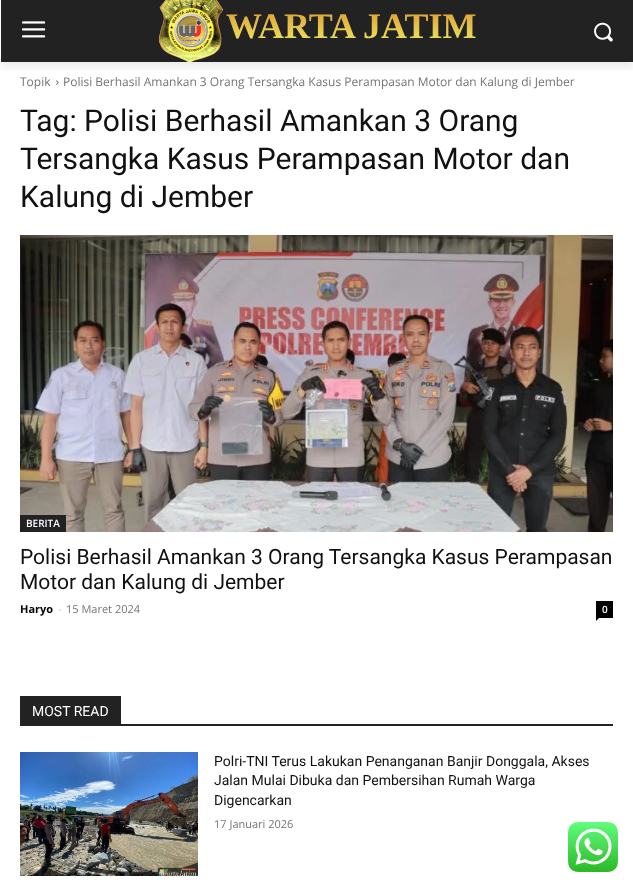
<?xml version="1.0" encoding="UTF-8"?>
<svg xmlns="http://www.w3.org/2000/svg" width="633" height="887">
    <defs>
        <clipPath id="clip1"><rect x="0" y="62" width="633" height="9"/></clipPath>
        <filter id="blur1" x="-50%" y="-200%" width="200%" height="500%"><feGaussianBlur stdDeviation="4"/></filter>
        <linearGradient id="g1" gradientUnits="userSpaceOnUse" x1="351" y1="47" x2="351" y2="7.2"><stop offset="0" stop-color="#EDED63"/><stop offset="1" stop-color="#DD9933"/></linearGradient>
    </defs>
    <rect width="100%" height="100%" fill="#FFFFFF"/>
    <rect x="1" y="0" width="632" height="62" fill="#222222"/>
    <image x="22" y="21" width="24" height="17" href="img_01.png"/>
    <image x="159" y="0" width="64" height="62" href="img_02.png"/>
    <image x="594" y="22" width="19" height="20" href="img_03.png"/>
    <image x="56" y="80" width="3" height="5" href="img_04.png"/>
    <g clip-path="url(#clip1)">
        <rect x="1" y="6" width="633" height="62" fill="#000000" fill-opacity="0.08" filter="url(#blur1)"/>
    </g>
    <text x="226" y="38" font-family="Liberation Serif" font-size="36" font-weight="700" fill="url(#g1)">WARTA JATIM</text>
    <text x="20" y="86" font-family="Open Sans" font-size="12" fill="#747474">Topik</text>
    <text x="63" y="86" font-family="Open Sans" font-size="12" fill="#747474">Polisi Berhasil Amankan 3 Orang Tersangka Kasus Perampasan Motor dan Kalung di Jember</text>
    <text font-family="Roboto" font-size="30" fill="#111111">
        <tspan x="20" y="131">Tag: Polisi Berhasil Amankan 3 Orang</tspan>
        <tspan x="20" y="169">Tersangka Kasus Perampasan Motor dan</tspan>
        <tspan x="20" y="207">Kalung di Jember</tspan>
    </text>
    <image x="20" y="235" width="593" height="297" href="img_05.png"/>
    <rect x="20" y="515" width="46" height="17" fill="#222222"/>
    <text x="26" y="527" font-family="Open Sans" font-size="10" font-weight="600" fill="#FFFFFF">BERITA</text>
    <text font-family="Roboto" font-size="21" fill="#111111">
        <tspan x="20" y="564">Polisi Berhasil Amankan 3 Orang Tersangka Kasus Perampasan</tspan>
        <tspan x="20" y="589">Motor dan Kalung di Jember</tspan>
    </text>
    <text x="20" y="613" font-family="Open Sans" font-size="11" font-weight="700" fill="#000000">Haryo</text>
    <text x="58" y="613" font-family="Open Sans" font-size="11" fill="#CCCCCC">-</text>
    <text x="66" y="613" font-family="Open Sans" font-size="11" fill="#747474">15 Maret 2024</text>
    <rect x="596" y="601" width="17" height="17" fill="#000000"/>
    <text x="602" y="613" font-family="Open Sans" font-size="10" font-weight="600" fill="#FFFFFF">0</text>
    <path d="M 596 618 H 599 L 596 621 Z" fill="#000000"/>
    <rect x="20" y="724" width="593" height="2" fill="#222222"/>
    <rect x="20" y="696" width="101" height="28" fill="#222222"/>
    <text x="32" y="716" font-family="Roboto" font-size="14" fill="#FFFFFF">MOST READ</text>
    <image x="20" y="752" width="178" height="124" href="img_06.png"/>
    <text font-family="Roboto" font-size="14" fill="#111111">
        <tspan x="214" y="766">Polri-TNI Terus Lakukan Penanganan Banjir Donggala, Akses</tspan>
        <tspan x="214" y="785">Jalan Mulai Dibuka dan Pembersihan Rumah Warga</tspan>
        <tspan x="214" y="805">Digencarkan</tspan>
    </text>
    <text x="214" y="828" font-family="Open Sans" font-size="11" fill="#747474">17 Januari 2026</text>
    <image x="568" y="822" width="50" height="50" href="img_07.png"/>
</svg>
